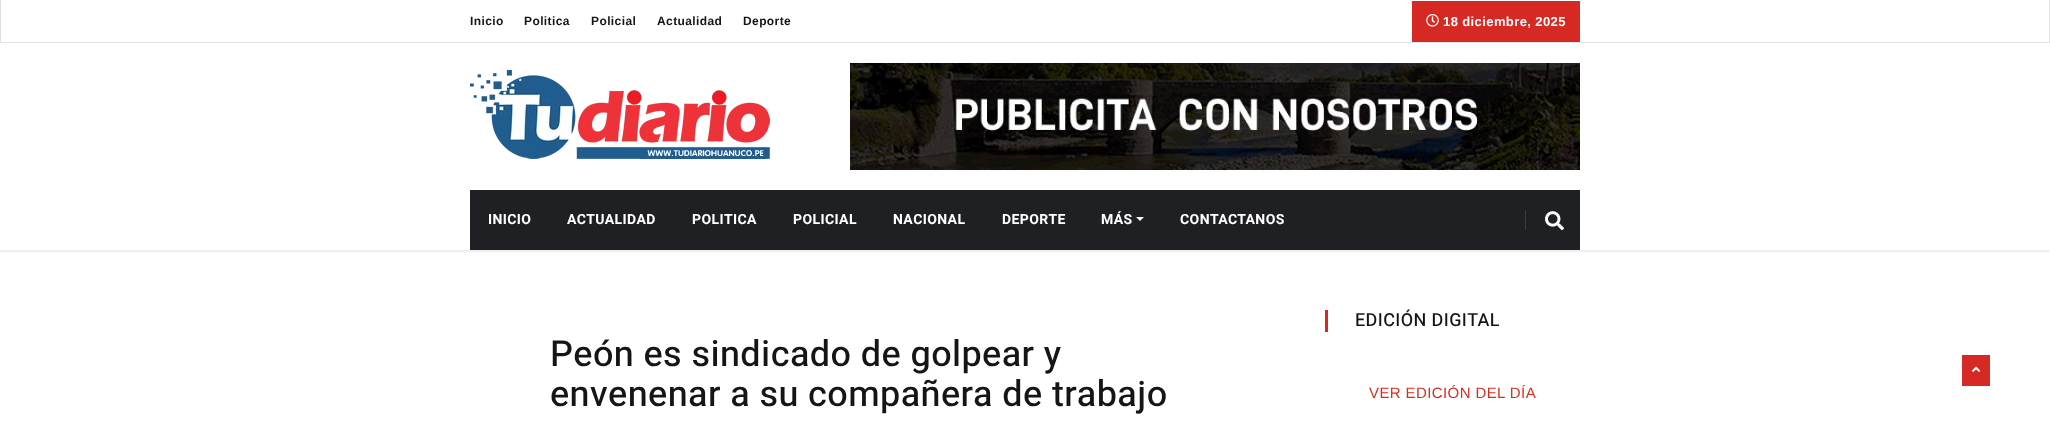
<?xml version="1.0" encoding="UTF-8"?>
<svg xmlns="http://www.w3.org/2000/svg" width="2050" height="426">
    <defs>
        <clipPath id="clip1"><rect x="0" y="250" width="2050" height="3"/></clipPath>
        <filter id="blur1" x="-50%" y="-200%" width="200%" height="500%"><feGaussianBlur stdDeviation="1"/></filter>
    </defs>
    <rect width="100%" height="100%" fill="#FFFFFF"/>
    <rect x="2049" y="0" width="1" height="43" fill="#DEE2E6"/>
    <rect x="0" y="42" width="2050" height="1" fill="#DEE2E6"/>
    <rect x="0" y="0" width="1" height="43" fill="#DEE2E6"/>
    <text x="470" y="25" font-family="Arimo" font-size="12" font-weight="700" letter-spacing="0.4" fill="#151515">Inicio</text>
    <text x="524" y="25" font-family="Arimo" font-size="12" font-weight="700" letter-spacing="0.4" fill="#151515">Politica</text>
    <text x="591" y="25" font-family="Arimo" font-size="12" font-weight="700" letter-spacing="0.4" fill="#151515">Policial</text>
    <text x="657" y="25" font-family="Arimo" font-size="12" font-weight="700" letter-spacing="0.4" fill="#151515">Actualidad</text>
    <text x="743" y="25" font-family="Arimo" font-size="12" font-weight="700" letter-spacing="0.4" fill="#151515">Deporte</text>
    <rect x="1412" y="1" width="168" height="41" fill="#D72924"/>
    <image x="1426" y="14" width="13" height="13" href="img_01.png"/>
    <text x="1443" y="26" font-family="Arimo" font-size="13" font-weight="700" letter-spacing="0.4" fill="#FFFFFF">18 diciembre, 2025</text>
    <image x="470" y="70" width="300" height="89" href="img_02.png"/>
    <image x="850" y="63" width="730" height="107" href="img_03.png"/>
    <g clip-path="url(#clip1)">
        <rect x="0" y="192" width="2050" height="60" fill="#000000" fill-opacity="0.08" filter="url(#blur1)"/>
    </g>
    <rect x="470" y="190" width="1110" height="60" fill="#1F2024"/>
    <text x="488" y="224" font-family="Heebo" font-size="14" font-weight="700" letter-spacing="0.4" fill="#FFFFFF">INICIO</text>
    <text x="567" y="224" font-family="Heebo" font-size="14" font-weight="700" letter-spacing="0.4" fill="#FFFFFF">ACTUALIDAD</text>
    <text x="692" y="224" font-family="Heebo" font-size="14" font-weight="700" letter-spacing="0.4" fill="#FFFFFF">POLITICA</text>
    <text x="793" y="224" font-family="Heebo" font-size="14" font-weight="700" letter-spacing="0.4" fill="#FFFFFF">POLICIAL</text>
    <text x="893" y="224" font-family="Heebo" font-size="14" font-weight="700" letter-spacing="0.4" fill="#FFFFFF">NACIONAL</text>
    <text x="1002" y="224" font-family="Heebo" font-size="14" font-weight="700" letter-spacing="0.4" fill="#FFFFFF">DEPORTE</text>
    <text x="1101" y="224" font-family="Heebo" font-size="14" font-weight="700" letter-spacing="0.4" fill="#FFFFFF">MÁS</text>
    <path d="M 1136 217 H 1144 L 1140 221 Z" fill="#FFFFFF"/>
    <text x="1180" y="224" font-family="Heebo" font-size="14" font-weight="700" letter-spacing="0.4" fill="#FFFFFF">CONTACTANOS</text>
    <rect x="1525" y="210" width="1" height="20" fill="#3C3C3C"/>
    <image x="1545" y="211" width="19" height="20" href="img_04.png"/>
    <text font-family="Heebo" font-size="36" font-weight="500" letter-spacing="0.4" fill="#151515">
        <tspan x="550" y="366">Peón es sindicado de golpear y</tspan>
        <tspan x="550" y="406">envenenar a su compañera de trabajo</tspan>
    </text>
    <rect x="1325" y="310" width="3" height="22" fill="#D72924"/>
    <text x="1355" y="326" font-family="Heebo" font-size="18" font-weight="500" letter-spacing="0.4" fill="#151515">EDICIÓN DIGITAL</text>
    <text x="1369" y="398" font-family="Arimo" font-size="15" letter-spacing="0.4" fill="#D42F1F">VER EDICIÓN DEL DÍA</text>
    <rect x="1962" y="355" width="28" height="31" fill="#D72924"/>
    <image x="1972" y="366" width="9" height="6" href="img_05.png"/>
</svg>
